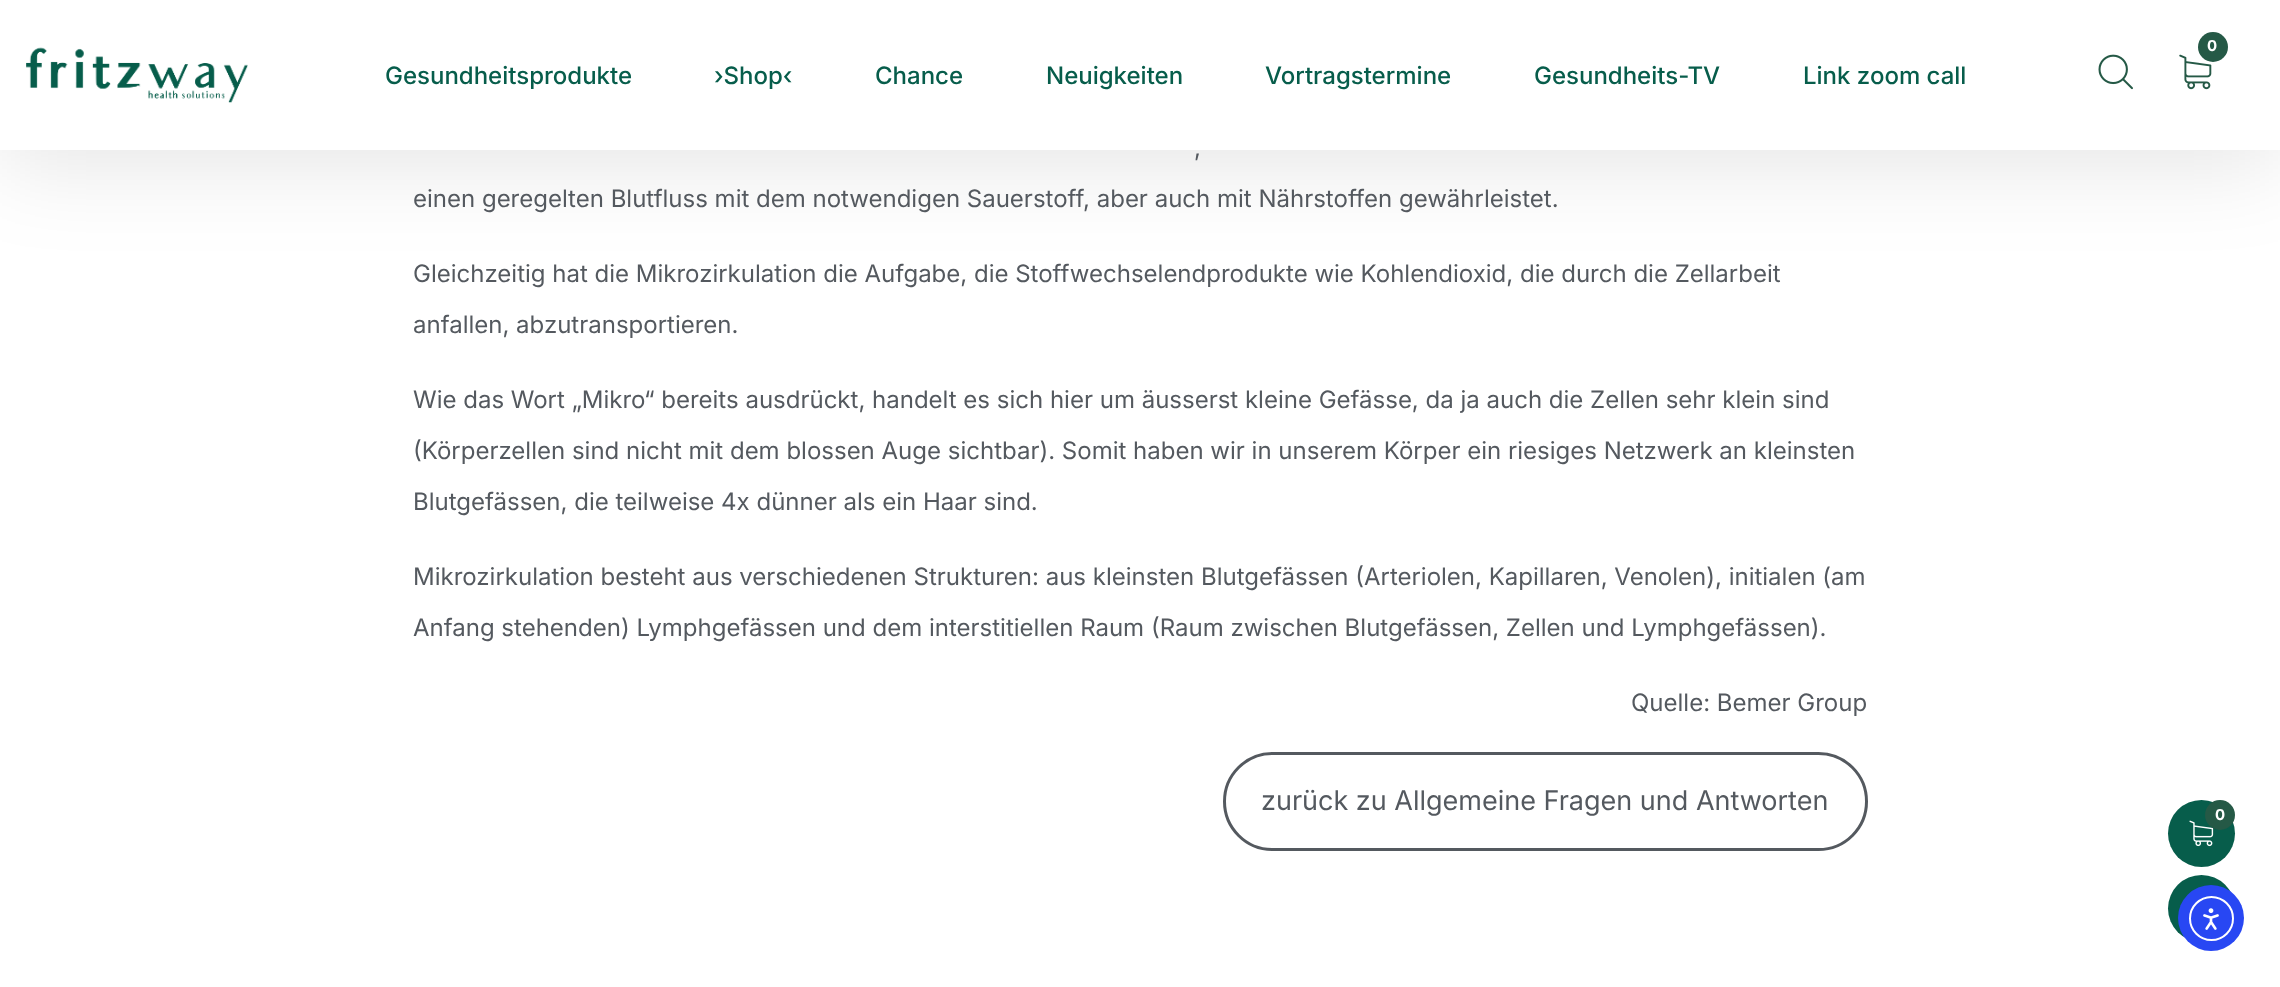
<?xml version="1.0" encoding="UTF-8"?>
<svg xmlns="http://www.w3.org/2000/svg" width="2280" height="987">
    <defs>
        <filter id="blur1" x="-50%" y="-200%" width="200%" height="500%"><feGaussianBlur stdDeviation="45"/></filter>
    </defs>
    <rect width="100%" height="100%" fill="#FFFFFF"/>
    <rect x="0" y="15" width="2280" height="150" fill="#000000" fill-opacity="0.1" filter="url(#blur1)"/>
    <rect x="0" y="0" width="2280" height="150" fill="#FFFFFF"/>
    <image x="2179" y="54" width="33" height="36" href="img_01.png"/>
    <circle cx="2213" cy="47" r="15" fill="#255946"/>
    <text x="2207" y="51" font-family="Inter" font-size="15" font-weight="700" fill="#FFFFFF">0</text>
    <image x="2098" y="54" width="35" height="36" href="img_02.png"/>
    <image x="26" y="47" width="222" height="56" href="img_03.png"/>
    <text x="385" y="84" font-family="Inter" font-size="24" font-weight="500" fill="#075D4B">Gesundheitsprodukte</text>
    <text x="714" y="84" font-family="Inter" font-size="24" font-weight="500" fill="#075D4B">›Shop‹</text>
    <text x="875" y="84" font-family="Inter" font-size="24" font-weight="500" fill="#075D4B">Chance</text>
    <text x="1046" y="84" font-family="Inter" font-size="24" font-weight="500" fill="#075D4B">Neuigkeiten</text>
    <text x="1265" y="84" font-family="Inter" font-size="24" font-weight="500" fill="#075D4B">Vortragstermine</text>
    <text x="1534" y="84" font-family="Inter" font-size="24" font-weight="500" fill="#075D4B">Gesundheits-TV</text>
    <text x="1803" y="84" font-family="Inter" font-size="24" font-weight="500" fill="#075D4B">Link zoom call</text>
    <text x="1194" y="156" font-family="Inter" font-size="24" fill="#54595F">,</text>
    <text x="413" y="207" font-family="Inter" font-size="24" fill="#54595F">einen geregelten Blutfluss mit dem notwendigen Sauerstoff, aber auch mit Nährstoffen gewährleistet.</text>
    <text x="413" y="282" font-family="Inter" font-size="24" fill="#54595F">Gleichzeitig hat die Mikrozirkulation die Aufgabe, die Stoffwechselendprodukte wie Kohlendioxid, die durch die Zellarbeit</text>
    <text x="413" y="333" font-family="Inter" font-size="24" fill="#54595F">anfallen, abzutransportieren.</text>
    <text x="413" y="408" font-family="Inter" font-size="24" fill="#54595F">Wie das Wort „Mikro“ bereits ausdrückt, handelt es sich hier um äusserst kleine Gefässe, da ja auch die Zellen sehr klein sind</text>
    <text x="413" y="459" font-family="Inter" font-size="24" fill="#54595F">(Körperzellen sind nicht mit dem blossen Auge sichtbar). Somit haben wir in unserem Körper ein riesiges Netzwerk an kleinsten</text>
    <text x="413" y="510" font-family="Inter" font-size="24" fill="#54595F">Blutgefässen, die teilweise 4x dünner als ein Haar sind.</text>
    <text x="413" y="585" font-family="Inter" font-size="24" fill="#54595F">Mikrozirkulation besteht aus verschiedenen Strukturen: aus kleinsten Blutgefässen (Arteriolen, Kapillaren, Venolen), initialen (am</text>
    <text x="413" y="636" font-family="Inter" font-size="24" fill="#54595F">Anfang stehenden) Lymphgefässen und dem interstitiellen Raum (Raum zwischen Blutgefässen, Zellen und Lymphgefässen).</text>
    <text x="1631" y="711" font-family="Inter" font-size="24" fill="#54595F">Quelle: Bemer Group</text>
    <rect x="1224.5" y="753.5" width="642" height="96" rx="48" fill="none" stroke="#54595F" stroke-width="3"/>
    <text x="1261" y="810" font-family="Inter" font-size="27" fill="#54595F">zurück zu Allgemeine Fragen und Antworten</text>
    <circle cx="2201.5" cy="833.5" r="33.5" fill="#075D4B"/>
    <image x="2189" y="820" width="25" height="27" href="img_04.png"/>
    <circle cx="2220" cy="815" r="15" fill="#255946"/>
    <text x="2215" y="820" font-family="Inter" font-size="15" font-weight="700" fill="#FFFFFF">0</text>
    <circle cx="2201.5" cy="908.5" r="33.5" fill="#075D4B"/>
    <circle cx="2211" cy="918" r="33" fill="#2847F3"/>
    <circle cx="2211.5" cy="918.5" r="21.5" fill="none" stroke="#FFFFFF" stroke-width="2"/>
    <image x="2203" y="908" width="16" height="22" href="img_05.png"/>
</svg>
